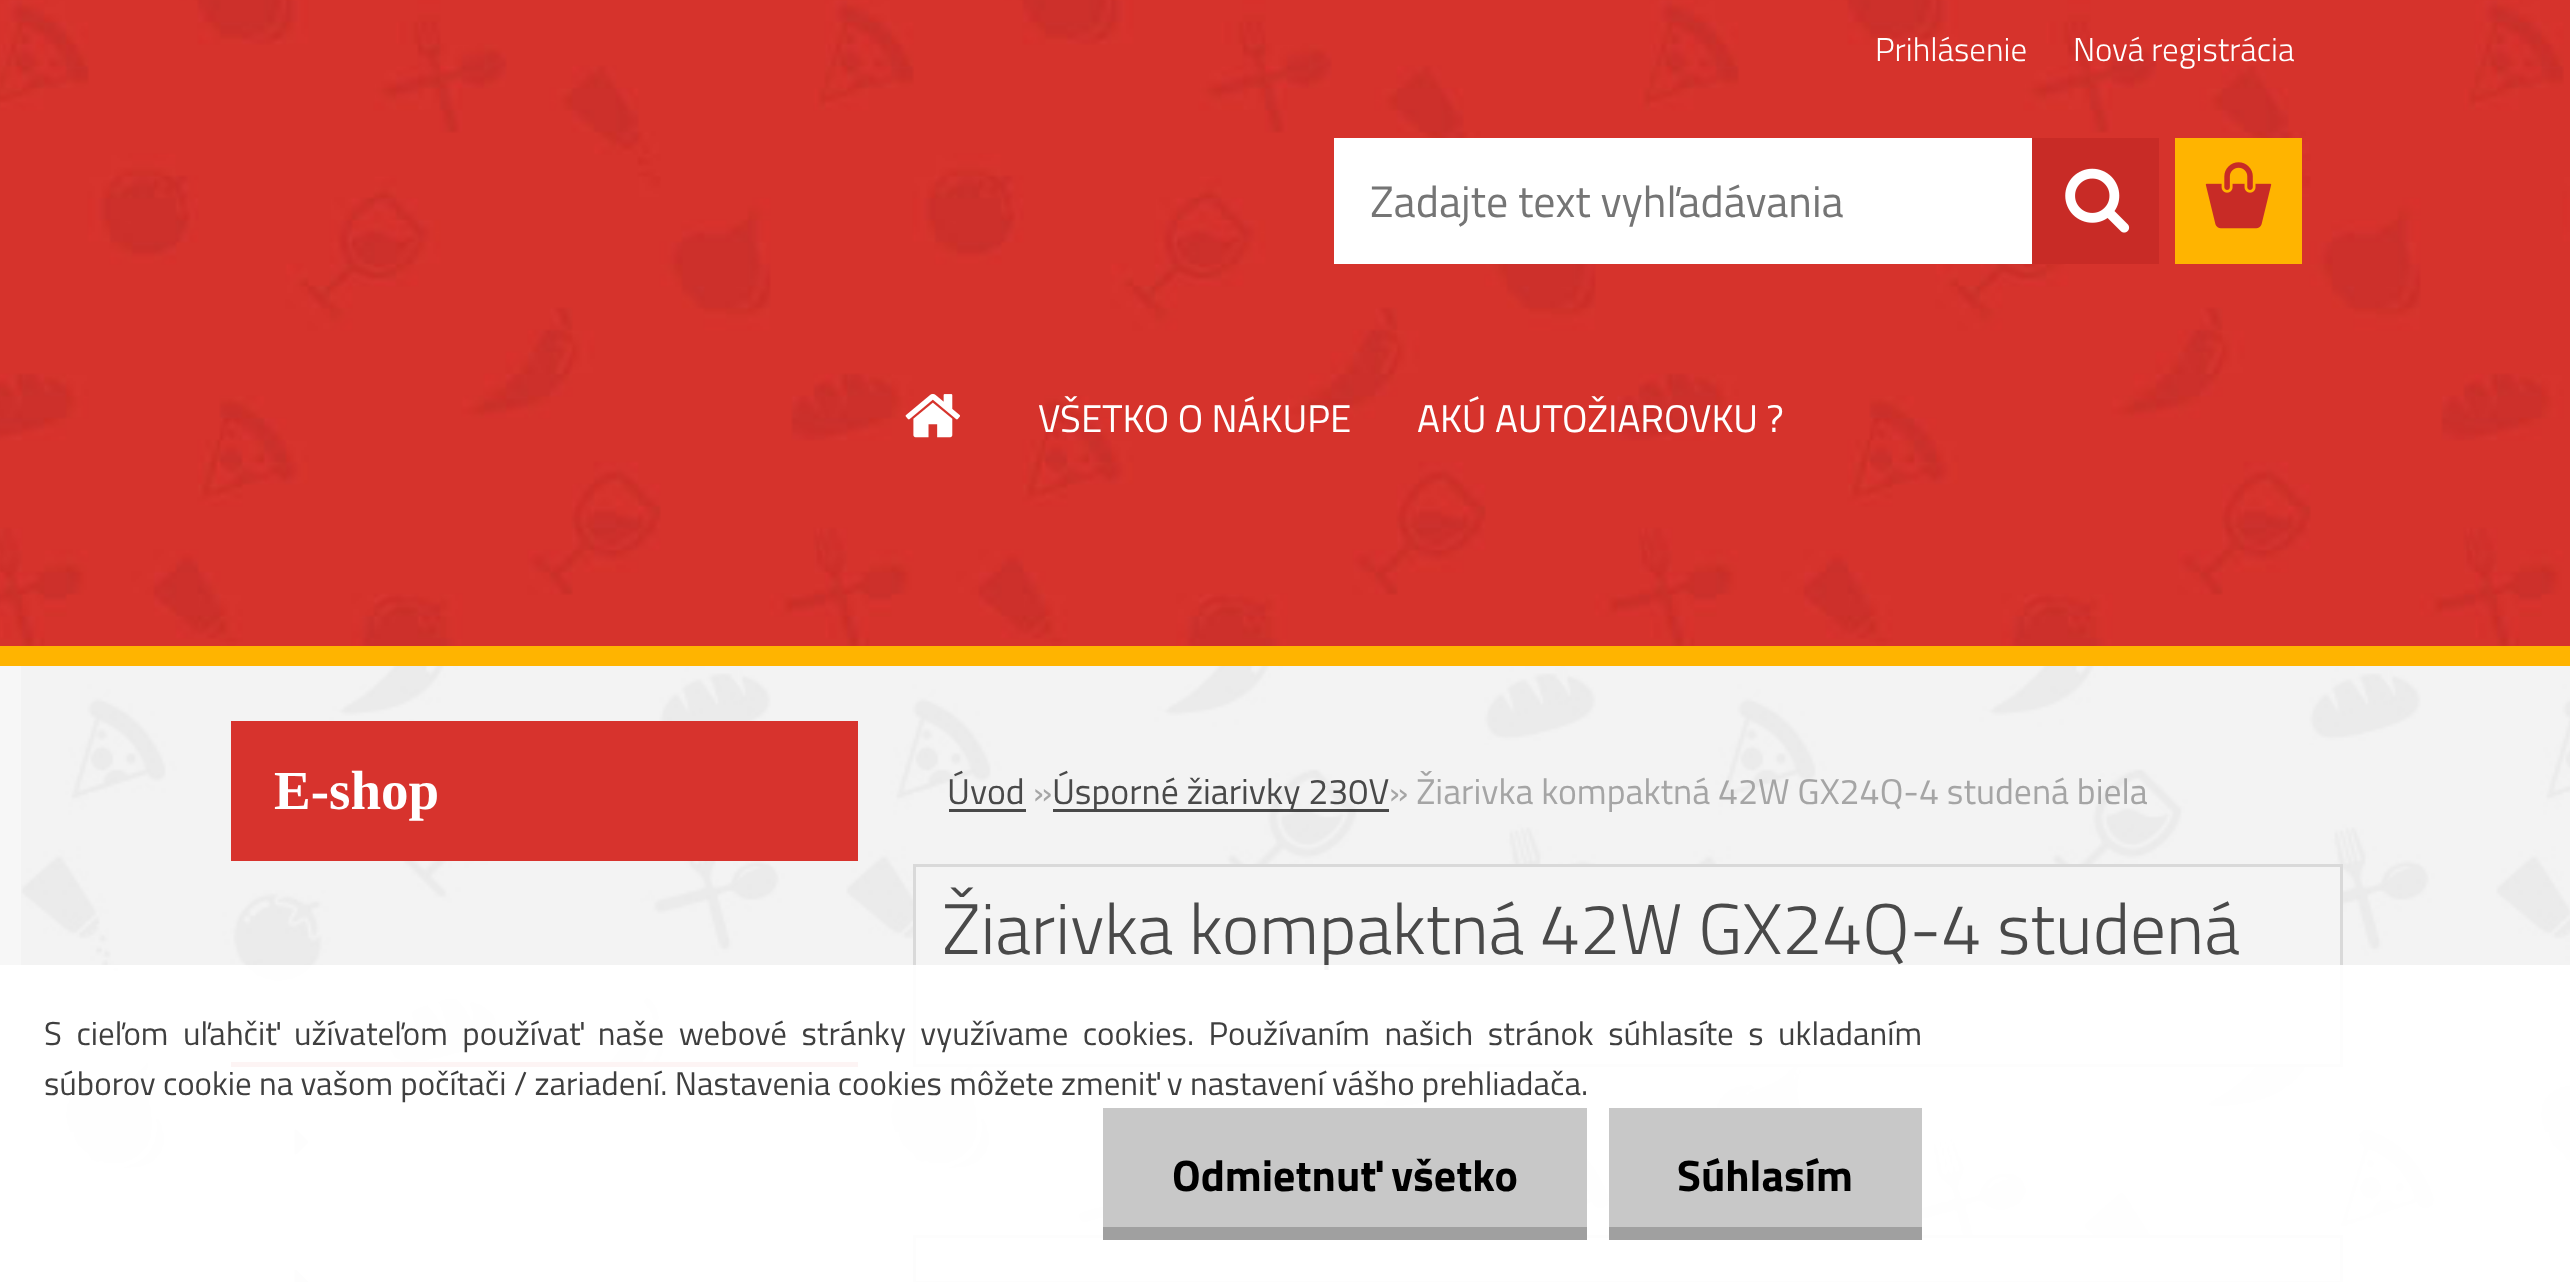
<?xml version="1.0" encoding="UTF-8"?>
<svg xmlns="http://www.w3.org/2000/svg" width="2570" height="1282">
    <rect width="100%" height="100%" fill="#F7F7F7"/>
    <image x="21" y="666" width="2549" height="616" href="img_01.png"/>
    <image x="0" y="0" width="2570" height="646" href="img_05.png"/>
    <text x="1875" y="61" font-family="Titillium Web" font-size="33" font-weight="300" fill="#FFFFFF">Prihlásenie</text>
    <text x="2073" y="61" font-family="Titillium Web" font-size="33" font-weight="300" fill="#FFFFFF">Nová registrácia</text>
    <rect x="2175" y="138" width="127" height="126" fill="#FFB400"/>
    <image x="2205" y="162" width="67" height="67" href="img_02.png"/>
    <rect x="231" y="721" width="627" height="140" fill="#D7332D"/>
    <text x="274" y="809" font-family="Liberation Serif" font-size="55" font-weight="700" fill="#FFFFFF">E-shop</text>
    <rect x="231" y="1062" width="627" height="5" fill="#D7332D"/>
    <rect x="234" y="1067" width="621" height="138" fill="#FFFFFF"/>
    <rect x="855" y="1067" width="3" height="140" fill="#F0F0F0"/>
    <rect x="231" y="1205" width="627" height="3" fill="#F0F0F0"/>
    <rect x="231" y="1067" width="3" height="215" fill="#F0F0F0"/>
    <image x="294" y="1129" width="15" height="26" href="img_03.png"/>
    <rect x="234" y="1208" width="621" height="74" fill="#FFFFFF"/>
    <rect x="855" y="1207" width="3" height="75" fill="#F0F0F0"/>
    <image x="294" y="1269" width="15" height="13" href="img_04.png"/>
    <text x="947" y="804" font-family="Titillium Web" font-size="35.75" fill="#494949">Úvod</text>
    <rect x="949" y="809" width="77" height="3" fill="#494949"/>
    <text x="1033" y="804" font-family="Titillium Web" font-size="35.75" fill="#A5A5A5">»</text>
    <rect x="1053" y="809" width="336" height="3" fill="#000000" fill-opacity="0.7"/>
    <text x="1052" y="804" font-family="Titillium Web" font-size="35.75" fill="#494949">Úsporné žiarivky 230V</text>
    <text x="1389" y="804" font-family="Titillium Web" font-size="35.75" fill="#A5A5A5">» Žiarivka kompaktná 42W GX24Q-4 studená biela</text>
    <rect x="914.5" y="865.5" width="1427" height="200" fill="#F4F4F4" stroke="#D9D9D9" stroke-width="3"/>
    <text x="942" y="954" font-family="Titillium Web" font-size="71.5" font-weight="300" fill="#494949">Žiarivka kompaktná 42W GX24Q-4 studená</text>
    <rect x="1137" y="1238" width="1033" height="39" fill="#F4F4F4"/>
    <rect x="914.5" y="1236.5" width="1427" height="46" fill="none" stroke="#D9D9D9" stroke-width="3"/>
    <rect x="0" y="646" width="2570" height="20" fill="#FFB400"/>
    <rect x="1334" y="138" width="698" height="126" fill="#FFFFFF"/>
    <text x="1370" y="217" font-family="Titillium Web" font-size="44" fill="#757575">Zadajte text vyhľadávania</text>
    <rect x="2032" y="138" width="127" height="126" fill="#C82B26"/>
    <image x="2065" y="168" width="65" height="65" href="img_06.png"/>
    <image x="905" y="393" width="55" height="45" href="img_07.png"/>
    <text x="1038" y="432" font-family="Titillium Web" font-size="38.5" fill="#FFFFFF">VŠETKO O NÁKUPE</text>
    <text x="1417" y="432" font-family="Titillium Web" font-size="38.5" fill="#FFFFFF">AKÚ AUTOŽIAROVKU ?</text>
    <rect x="0" y="965" width="2570" height="317" fill="#FFFFFF" fill-opacity="0.95"/>
    <text font-family="Titillium Web" font-size="33" fill="#3F3F3F">
        <tspan x="44" y="1045" word-spacing="7.25">S cieľom uľahčiť užívateľom používať naše webové stránky využívame cookies. Používaním našich stránok súhlasíte s ukladaním</tspan>
        <tspan x="44" y="1095">súborov cookie na vašom počítači / zariadení. Nastavenia cookies môžete zmeniť v nastavení vášho prehliadača.</tspan>
    </text>
    <rect x="1103" y="1108" width="484" height="119" fill="#C8C8C8"/>
    <rect x="1103" y="1227" width="484" height="13" fill="#A0A0A0"/>
    <text x="1172" y="1191" font-family="Titillium Web" font-size="44" font-weight="700" fill="#000000">Odmietnuť všetko</text>
    <rect x="1609" y="1108" width="313" height="119" fill="#C8C8C8"/>
    <rect x="1609" y="1227" width="313" height="13" fill="#A0A0A0"/>
    <text x="1677" y="1191" font-family="Titillium Web" font-size="44" font-weight="700" fill="#000000">Súhlasím</text>
</svg>
